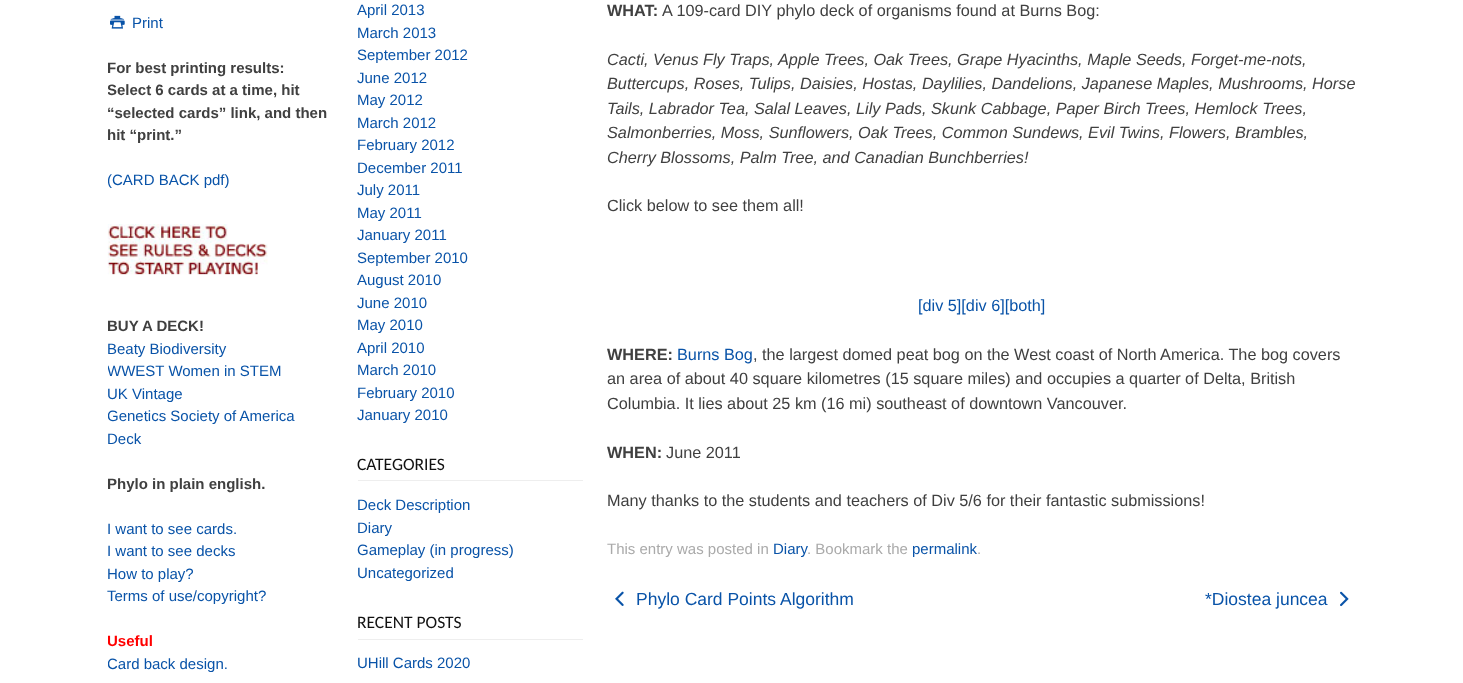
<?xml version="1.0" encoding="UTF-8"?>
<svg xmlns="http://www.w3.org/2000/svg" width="1463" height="683">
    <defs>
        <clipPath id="clip1"><rect x="108" y="0" width="500" height="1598"/></clipPath>
    </defs>
    <rect width="100%" height="100%" fill="#FFFFFF"/>
    <image x="110" y="15" width="15" height="14" href="img_01.png"/>
    <text x="132" y="28" font-family="Liberation Sans" font-size="15" fill="#0953A8">Print</text>
    <g clip-path="url(#clip1)">
        <text font-family="Liberation Sans" font-size="15" font-weight="700" fill="#404040">
            <tspan x="107" y="73">For best printing results:</tspan>
            <tspan x="107" y="95">Select 6 cards at a time, hit</tspan>
        </text>
    </g>
    <text x="107" y="118" font-family="Liberation Sans" font-size="15" font-weight="700" fill="#404040">“selected cards” link, and then</text>
    <g clip-path="url(#clip1)">
        <text x="107" y="140" font-family="Liberation Sans" font-size="15" font-weight="700" fill="#404040">hit “print.”</text>
        <text x="107" y="185" font-family="Liberation Sans" font-size="15" fill="#0953A8">(CARD BACK pdf)</text>
    </g>
    <image x="107" y="224" width="161" height="51" href="img_02.png"/>
    <g clip-path="url(#clip1)">
        <text x="107" y="331" font-family="Liberation Sans" font-size="15" font-weight="700" fill="#404040">BUY A DECK!</text>
    </g>
    <text x="107" y="354" font-family="Liberation Sans" font-size="15" fill="#0953A8">Beaty Biodiversity</text>
    <g clip-path="url(#clip1)">
        <text x="107" y="376" font-family="Liberation Sans" font-size="15" fill="#0953A8">WWEST Women in STEM</text>
    </g>
    <text x="107" y="399" font-family="Liberation Sans" font-size="15" fill="#0953A8">UK Vintage</text>
    <g clip-path="url(#clip1)">
        <text x="107" y="421" font-family="Liberation Sans" font-size="15" fill="#0953A8">Genetics Society of America</text>
    </g>
    <text x="107" y="444" font-family="Liberation Sans" font-size="15" fill="#0953A8">Deck</text>
    <g clip-path="url(#clip1)">
        <text x="107" y="489" font-family="Liberation Sans" font-size="15" font-weight="700" fill="#404040">Phylo in plain english.</text>
    </g>
    <text font-family="Liberation Sans" font-size="15" fill="#0953A8">
        <tspan x="107" y="534">I want to see cards.</tspan>
        <tspan x="107" y="556">I want to see decks</tspan>
        <tspan x="107" y="579">How to play?</tspan>
        <tspan x="107" y="601">Terms of use/copyright?</tspan>
    </text>
    <g clip-path="url(#clip1)">
        <text x="107" y="646" font-family="Liberation Sans" font-size="15" font-weight="700" fill="#FF0000">Useful</text>
        <text x="107" y="669" font-family="Liberation Sans" font-size="15" fill="#0953A8">Card back design.</text>
    </g>
    <text font-family="Liberation Sans" font-size="15" fill="#0953A8">
        <tspan x="357" y="15">April 2013</tspan>
        <tspan x="357" y="38">March 2013</tspan>
        <tspan x="357" y="60">September 2012</tspan>
        <tspan x="357" y="83">June 2012</tspan>
        <tspan x="357" y="105">May 2012</tspan>
        <tspan x="357" y="128">March 2012</tspan>
        <tspan x="357" y="150">February 2012</tspan>
        <tspan x="357" y="173">December 2011</tspan>
        <tspan x="357" y="195">July 2011</tspan>
        <tspan x="357" y="218">May 2011</tspan>
        <tspan x="357" y="240">January 2011</tspan>
        <tspan x="357" y="263">September 2010</tspan>
        <tspan x="357" y="285">August 2010</tspan>
        <tspan x="357" y="308">June 2010</tspan>
        <tspan x="357" y="330">May 2010</tspan>
        <tspan x="357" y="353">April 2010</tspan>
        <tspan x="357" y="375">March 2010</tspan>
        <tspan x="357" y="398">February 2010</tspan>
        <tspan x="357" y="420">January 2010</tspan>
    </text>
    <rect x="358" y="480" width="225" height="1" fill="#EEEEEE"/>
    <text x="357" y="470" font-family="Carlito" font-size="17.5" fill="#111111">CATEGORIES</text>
    <text font-family="Liberation Sans" font-size="15" fill="#0953A8">
        <tspan x="357" y="510">Deck Description</tspan>
        <tspan x="357" y="533">Diary</tspan>
        <tspan x="357" y="555">Gameplay (in progress)</tspan>
        <tspan x="357" y="578">Uncategorized</tspan>
    </text>
    <rect x="358" y="639" width="225" height="1" fill="#EEEEEE"/>
    <text x="357" y="628" font-family="Carlito" font-size="17.5" fill="#111111">RECENT POSTS</text>
    <text x="357" y="668" font-family="Liberation Sans" font-size="15" fill="#0953A8">UHill Cards 2020</text>
    <text x="607" y="16" font-family="Liberation Sans" font-size="16.25" font-weight="700" fill="#404040">WHAT:</text>
    <text x="662" y="16" font-family="Liberation Sans" font-size="16.25" fill="#404040">A 109-card DIY phylo deck of organisms found at Burns Bog:</text>
    <text font-family="Liberation Sans" font-size="16.25" font-style="italic" fill="#404040">
        <tspan x="607" y="65">Cacti, Venus Fly Traps, Apple Trees, Oak Trees, Grape Hyacinths, Maple Seeds, Forget-me-nots,</tspan>
        <tspan x="607" y="89">Buttercups, Roses, Tulips, Daisies, Hostas, Daylilies, Dandelions, Japanese Maples, Mushrooms, Horse</tspan>
        <tspan x="607" y="114">Tails, Labrador Tea, Salal Leaves, Lily Pads, Skunk Cabbage, Paper Birch Trees, Hemlock Trees,</tspan>
        <tspan x="607" y="138">Salmonberries, Moss, Sunflowers, Oak Trees, Common Sundews, Evil Twins, Flowers, Brambles,</tspan>
        <tspan x="607" y="163">Cherry Blossoms, Palm Tree, and Canadian Bunchberries!</tspan>
    </text>
    <text x="607" y="211" font-family="Liberation Sans" font-size="16.25" fill="#404040">Click below to see them all!</text>
    <text x="918" y="311" font-family="Liberation Sans" font-size="16.25" fill="#0953A8">[div 5][div 6][both]</text>
    <text x="607" y="360" font-family="Liberation Sans" font-size="16.25" font-weight="700" fill="#404040">WHERE:</text>
    <text x="677" y="360" font-family="Liberation Sans" font-size="16.25" fill="#0953A8">Burns Bog</text>
    <text x="753" y="360" font-family="Liberation Sans" font-size="16.25" fill="#404040">, the largest domed peat bog on the West coast of North America. The bog covers</text>
    <text font-family="Liberation Sans" font-size="16.25" fill="#404040">
        <tspan x="607" y="384">an area of about 40 square kilometres (15 square miles) and occupies a quarter of Delta, British</tspan>
        <tspan x="607" y="409">Columbia. It lies about 25 km (16 mi) southeast of downtown Vancouver.</tspan>
    </text>
    <text x="607" y="458" font-family="Liberation Sans" font-size="16.25" font-weight="700" fill="#404040">WHEN:</text>
    <text x="666" y="458" font-family="Liberation Sans" font-size="16.25" fill="#404040">June 2011</text>
    <text x="607" y="506" font-family="Liberation Sans" font-size="16.25" fill="#404040">Many thanks to the students and teachers of Div 5/6 for their fantastic submissions!</text>
    <text x="607" y="554" font-family="Liberation Sans" font-size="15" fill="#AAAAAA">This entry was posted in</text>
    <text x="773" y="554" font-family="Liberation Sans" font-size="15" fill="#0953A8">Diary</text>
    <text x="807" y="554" font-family="Liberation Sans" font-size="15" fill="#AAAAAA">. Bookmark the</text>
    <text x="912" y="554" font-family="Liberation Sans" font-size="15" fill="#0953A8">permalink</text>
    <text x="977" y="554" font-family="Liberation Sans" font-size="15" fill="#AAAAAA">.</text>
    <image x="615" y="591" width="9" height="15" href="img_03.png"/>
    <text x="636" y="605" font-family="Liberation Sans" font-size="17.5" fill="#0953A8">Phylo Card Points Algorithm</text>
    <text x="1205" y="605" font-family="Liberation Sans" font-size="17.5" fill="#0953A8">*Diostea juncea</text>
    <image x="1340" y="591" width="9" height="16" href="img_04.png"/>
</svg>
